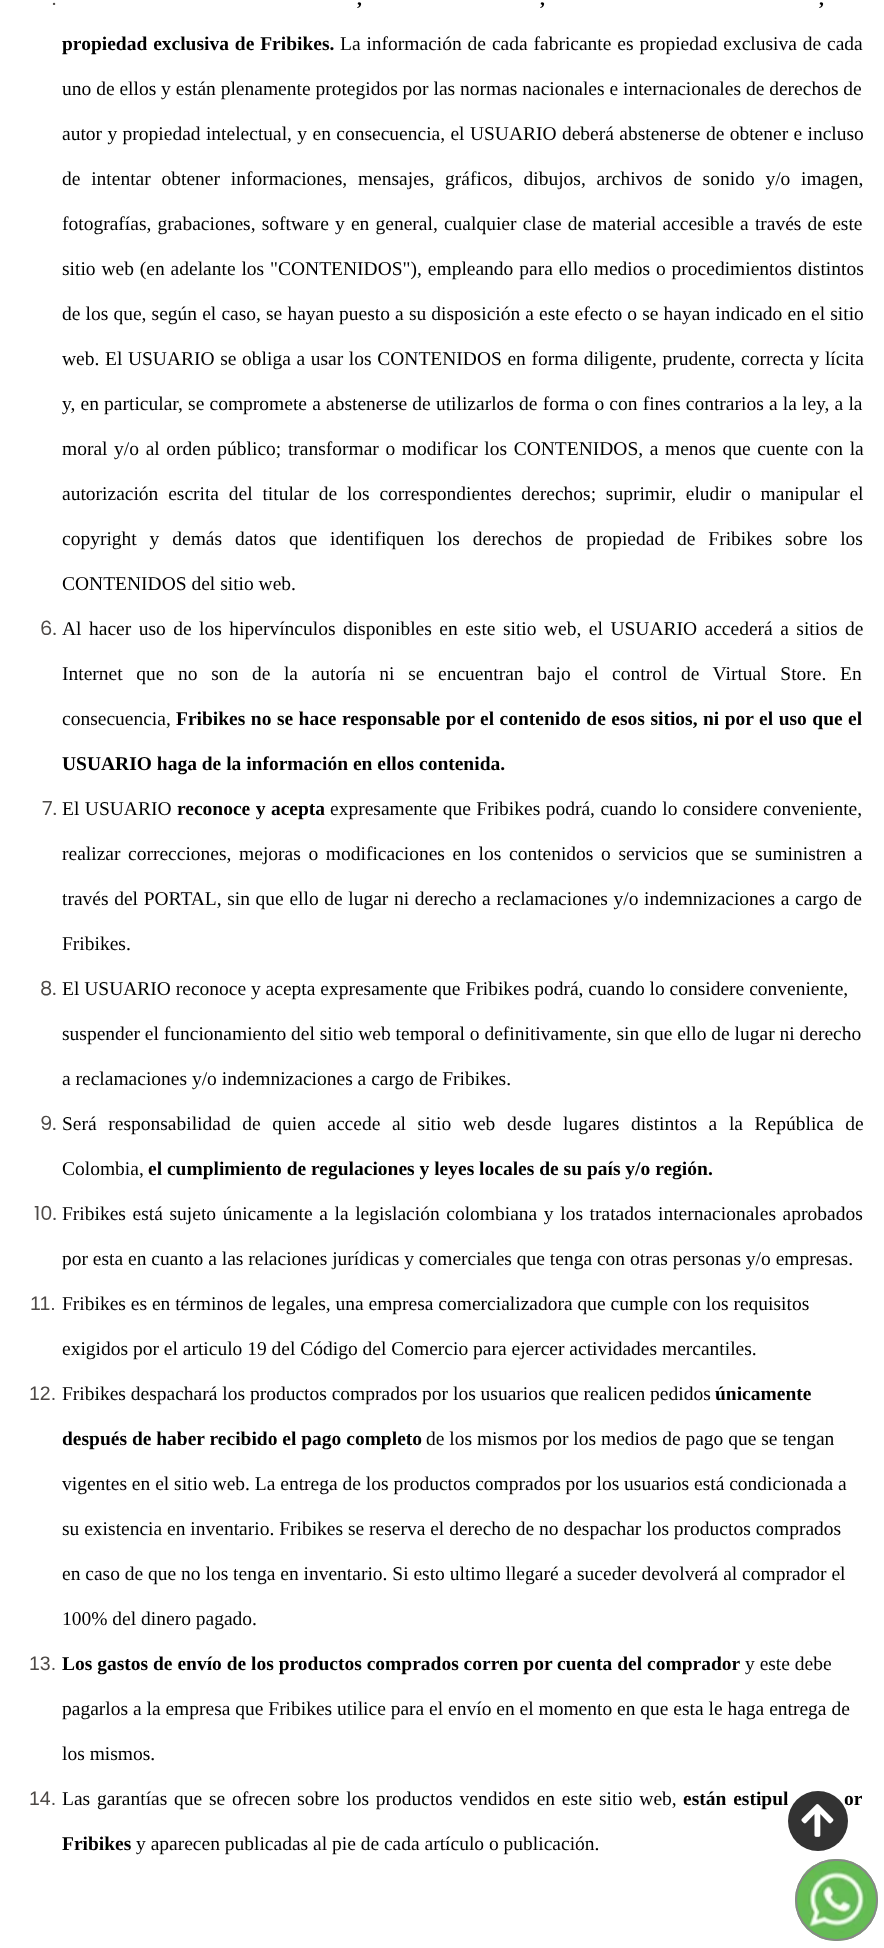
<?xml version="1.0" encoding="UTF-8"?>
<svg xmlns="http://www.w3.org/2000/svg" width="884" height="1948">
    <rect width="100%" height="100%" fill="#FFFFFF"/>
    <text x="52" y="5" font-family="Poppins" font-size="19.5" fill="#4D4946">.</text>
    <text x="357" y="5" word-spacing="5" font-family="Liberation Serif" font-size="19.5" font-weight="700" fill="#000000">,</text>
    <text x="540" y="5" word-spacing="5" font-family="Liberation Serif" font-size="19.5" font-weight="700" fill="#000000">,</text>
    <text x="819" y="5" word-spacing="5" font-family="Liberation Serif" font-size="19.5" font-weight="700" fill="#000000">,</text>
    <text x="62" y="50" word-spacing="1" font-family="Liberation Serif" font-size="19.5" font-weight="700" fill="#000000">propiedad exclusiva de Fribikes.</text>
    <text x="340" y="50" word-spacing="1" font-family="Liberation Serif" font-size="19.5" fill="#000000">La información de cada fabricante es propiedad exclusiva de cada</text>
    <text x="62" y="95" font-family="Liberation Serif" font-size="19.5" fill="#000000">uno de ellos y están plenamente protegidos por las normas nacionales e internacionales de derechos de</text>
    <text x="62" y="140" word-spacing="0.5" font-family="Liberation Serif" font-size="19.5" fill="#000000">autor y propiedad intelectual, y en consecuencia, el USUARIO deberá abstenerse de obtener e incluso</text>
    <text x="62" y="185" word-spacing="5.9" font-family="Liberation Serif" font-size="19.5" fill="#000000">de intentar obtener informaciones, mensajes, gráficos, dibujos, archivos de sonido y/o imagen,</text>
    <text x="62" y="230" word-spacing="1.3" font-family="Liberation Serif" font-size="19.5" fill="#000000">fotografías, grabaciones, software y en general, cualquier clase de material accesible a través de este</text>
    <text x="62" y="275" word-spacing="1" font-family="Liberation Serif" font-size="19.5" fill="#000000">sitio web (en adelante los "CONTENIDOS"), empleando para ello medios o procedimientos distintos</text>
    <text x="62" y="320" word-spacing="0.25" font-family="Liberation Serif" font-size="19.5" fill="#000000">de los que, según el caso, se hayan puesto a su disposición a este efecto o se hayan indicado en el sitio</text>
    <text x="62" y="365" word-spacing="0.75" font-family="Liberation Serif" font-size="19.5" fill="#000000">web. El USUARIO se obliga a usar los CONTENIDOS en forma diligente, prudente, correcta y lícita</text>
    <text x="62" y="410" word-spacing="0.3" font-family="Liberation Serif" font-size="19.5" fill="#000000">y, en particular, se compromete a abstenerse de utilizarlos de forma o con fines contrarios a la ley, a la</text>
    <text x="62" y="455" word-spacing="1.75" font-family="Liberation Serif" font-size="19.5" fill="#000000">moral y/o al orden público; transformar o modificar los CONTENIDOS, a menos que cuente con la</text>
    <text x="62" y="500" word-spacing="4.9" font-family="Liberation Serif" font-size="19.5" fill="#000000">autorización escrita del titular de los correspondientes derechos; suprimir, eludir o manipular el</text>
    <text x="62" y="545" word-spacing="8" font-family="Liberation Serif" font-size="19.5" fill="#000000">copyright y demás datos que identifiquen los derechos de propiedad de Fribikes sobre los</text>
    <text x="62" y="590" font-family="Liberation Serif" font-size="19.5" fill="#000000">CONTENIDOS del sitio web.</text>
    <text x="40" y="635" font-family="Poppins" font-size="19.5" fill="#4D4946">6.</text>
    <text x="62" y="635" word-spacing="2.6" font-family="Liberation Serif" font-size="19.5" fill="#000000">Al hacer uso de los hipervínculos disponibles en este sitio web, el USUARIO accederá a sitios de</text>
    <text x="62" y="680" word-spacing="8.75" font-family="Liberation Serif" font-size="19.5" fill="#000000">Internet que no son de la autoría ni se encuentran bajo el control de Virtual Store. En</text>
    <text x="62" y="725" font-family="Liberation Serif" font-size="19.5" fill="#000000">consecuencia,</text>
    <text x="176" y="725" word-spacing="0.6" font-family="Liberation Serif" font-size="19.5" font-weight="700" fill="#000000">Fribikes no se hace responsable por el contenido de esos sitios, ni por el uso que el</text>
    <text x="62" y="770" font-family="Liberation Serif" font-size="19.5" font-weight="700" fill="#000000">USUARIO haga de la información en ellos contenida.</text>
    <text x="42" y="815" font-family="Poppins" font-size="19.5" fill="#4D4946">7.</text>
    <text x="62" y="815" word-spacing="0.6" font-family="Liberation Serif" font-size="19.5" fill="#000000">El USUARIO</text>
    <text x="177" y="815" word-spacing="0.6" font-family="Liberation Serif" font-size="19.5" font-weight="700" fill="#000000">reconoce y acepta</text>
    <text x="330" y="815" word-spacing="0.6" font-family="Liberation Serif" font-size="19.5" fill="#000000">expresamente que Fribikes podrá, cuando lo considere conveniente,</text>
    <text x="62" y="860" word-spacing="2.75" font-family="Liberation Serif" font-size="19.5" fill="#000000">realizar correcciones, mejoras o modificaciones en los contenidos o servicios que se suministren a</text>
    <text x="62" y="905" word-spacing="0.75" font-family="Liberation Serif" font-size="19.5" fill="#000000">través del PORTAL, sin que ello de lugar ni derecho a reclamaciones y/o indemnizaciones a cargo de</text>
    <text x="62" y="950" font-family="Liberation Serif" font-size="19.5" fill="#000000">Fribikes.</text>
    <text x="40" y="995" font-family="Poppins" font-size="19.5" fill="#4D4946">8.</text>
    <text x="62" y="995" font-family="Liberation Serif" font-size="19.5" fill="#000000">El USUARIO reconoce y acepta expresamente que Fribikes podrá, cuando lo considere conveniente,</text>
    <text x="62" y="1040" font-family="Liberation Serif" font-size="19.5" fill="#000000">suspender el funcionamiento del sitio web temporal o definitivamente, sin que ello de lugar ni derecho</text>
    <text x="62" y="1085" font-family="Liberation Serif" font-size="19.5" fill="#000000">a reclamaciones y/o indemnizaciones a cargo de Fribikes.</text>
    <text x="40" y="1130" font-family="Poppins" font-size="19.5" fill="#4D4946">9.</text>
    <text x="62" y="1130" word-spacing="6.75" font-family="Liberation Serif" font-size="19.5" fill="#000000">Será responsabilidad de quien accede al sitio web desde lugares distintos a la República de</text>
    <text x="62" y="1175" font-family="Liberation Serif" font-size="19.5" fill="#000000">Colombia,</text>
    <text x="148" y="1175" font-family="Liberation Serif" font-size="19.5" font-weight="700" fill="#000000">el cumplimiento de regulaciones y leyes locales de su país y/o región.</text>
    <text x="34" y="1220" font-family="Poppins" font-size="19.5" fill="#4D4946">10.</text>
    <text x="62" y="1220" word-spacing="1.75" font-family="Liberation Serif" font-size="19.5" fill="#000000">Fribikes está sujeto únicamente a la legislación colombiana y los tratados internacionales aprobados</text>
    <text x="62" y="1265" font-family="Liberation Serif" font-size="19.5" fill="#000000">por esta en cuanto a las relaciones jurídicas y comerciales que tenga con otras personas y/o empresas.</text>
    <text x="30" y="1310" font-family="Liberation Sans" font-size="19.5" fill="#4D4946">11.</text>
    <text x="62" y="1310" font-family="Liberation Serif" font-size="19.5" fill="#000000">Fribikes es en términos de legales, una empresa comercializadora que cumple con los requisitos</text>
    <text x="62" y="1355" font-family="Liberation Serif" font-size="19.5" fill="#000000">exigidos por el articulo 19 del Código del Comercio para ejercer actividades mercantiles.</text>
    <text x="29" y="1400" font-family="Liberation Sans" font-size="19.5" fill="#4D4946">12.</text>
    <text x="62" y="1400" font-family="Liberation Serif" font-size="19.5" fill="#000000">Fribikes despachará los productos comprados por los usuarios que realicen pedidos</text>
    <text x="715" y="1400" font-family="Liberation Serif" font-size="19.5" font-weight="700" fill="#000000">únicamente</text>
    <text x="62" y="1445" font-family="Liberation Serif" font-size="19.5" font-weight="700" fill="#000000">después de haber recibido el pago completo</text>
    <text x="426" y="1445" font-family="Liberation Serif" font-size="19.5" fill="#000000">de los mismos por los medios de pago que se tengan</text>
    <text x="62" y="1490" font-family="Liberation Serif" font-size="19.5" fill="#000000">vigentes en el sitio web. La entrega de los productos comprados por los usuarios está condicionada a</text>
    <text x="62" y="1535" font-family="Liberation Serif" font-size="19.5" fill="#000000">su existencia en inventario. Fribikes se reserva el derecho de no despachar los productos comprados</text>
    <text x="62" y="1580" font-family="Liberation Serif" font-size="19.5" fill="#000000">en caso de que no los tenga en inventario. Si esto ultimo llegaré a suceder devolverá al comprador el</text>
    <text x="62" y="1625" font-family="Liberation Serif" font-size="19.5" fill="#000000">100% del dinero pagado.</text>
    <text x="29" y="1670" font-family="Liberation Sans" font-size="19.5" fill="#4D4946">13.</text>
    <text x="62" y="1670" font-family="Liberation Serif" font-size="19.5" font-weight="700" fill="#000000">Los gastos de envío de los productos comprados corren por cuenta del comprador</text>
    <text x="745" y="1670" font-family="Liberation Serif" font-size="19.5" fill="#000000">y este debe</text>
    <text x="62" y="1715" font-family="Liberation Serif" font-size="19.5" fill="#000000">pagarlos a la empresa que Fribikes utilice para el envío en el momento en que esta le haga entrega de</text>
    <text x="62" y="1760" font-family="Liberation Serif" font-size="19.5" fill="#000000">los mismos.</text>
    <text x="29" y="1805" font-family="Liberation Sans" font-size="19.5" fill="#4D4946">14.</text>
    <text x="62" y="1805" word-spacing="1.9" font-family="Liberation Serif" font-size="19.5" fill="#000000">Las garantías que se ofrecen sobre los productos vendidos en este sitio web,</text>
    <text x="683" y="1805" word-spacing="2" font-family="Liberation Serif" font-size="19.5" font-weight="700" fill="#000000">están estipul</text>
    <text x="844" y="1805" word-spacing="2" font-family="Liberation Serif" font-size="19.5" font-weight="700" fill="#000000">or</text>
    <text x="62" y="1850" font-family="Liberation Serif" font-size="19.5" font-weight="700" fill="#000000">Fribikes</text>
    <text x="136" y="1850" font-family="Liberation Serif" font-size="19.5" fill="#000000">y aparecen publicadas al pie de cada artículo o publicación.</text>
    <rect x="795" y="1859" width="83" height="82" rx="41" fill="#65BC54"/>
    <image x="802" y="1865" width="68" height="69" href="img_01.png"/>
    <rect x="796" y="1860" width="81" height="80" rx="40" fill="none" stroke="#888888" stroke-width="2"/>
    <circle cx="818" cy="1821" r="30" fill="#333333"/>
    <image x="801" y="1804" width="33" height="33" href="img_02.png"/>
</svg>
